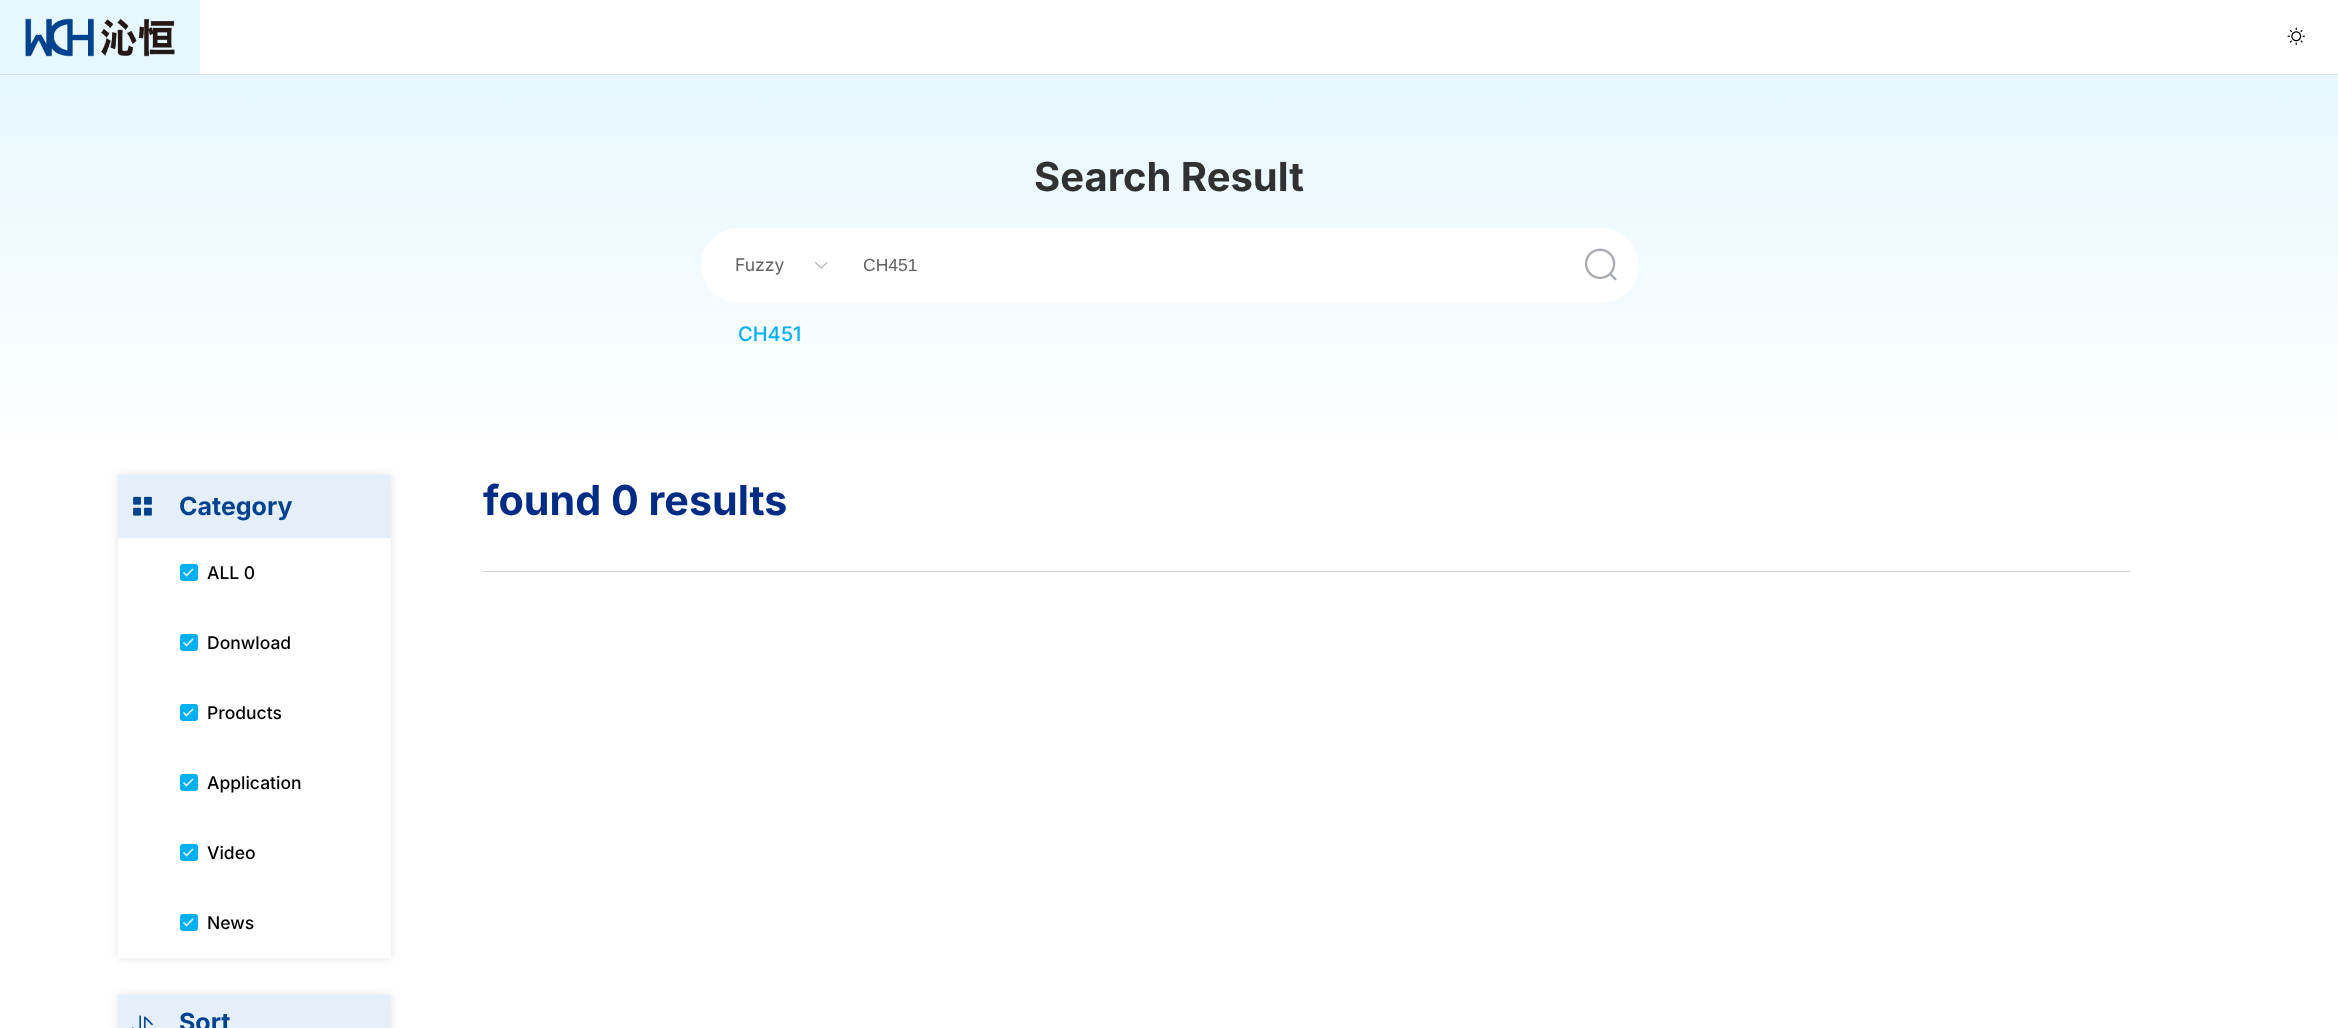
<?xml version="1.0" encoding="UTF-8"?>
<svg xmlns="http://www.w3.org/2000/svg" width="2338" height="1028">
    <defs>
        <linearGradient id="g1" gradientUnits="userSpaceOnUse" x1="1169" y1="75" x2="1169" y2="475"><stop offset="0" stop-color="#E6F7FF"/><stop offset="1" stop-color="#FFFFFF"/></linearGradient>
        <filter id="blur1" x="-50%" y="-200%" width="200%" height="500%"><feGaussianBlur stdDeviation="4"/></filter>
    </defs>
    <rect width="100%" height="100%" fill="#FFFFFF"/>
    <rect x="0" y="74" width="2338" height="1" fill="#DCDFE6"/>
    <rect x="0" y="0" width="200" height="74" fill="#E6F7FE"/>
    <image x="25" y="18" width="150" height="39" href="img_01.png"/>
    <image x="2287" y="27" width="18" height="18" href="img_02.png"/>
    <rect x="0" y="75" width="2338" height="360" fill="url(#g1)"/>
    <text x="1034" y="191" font-family="Inter" font-size="40" font-weight="700" fill="#303133">Search Result</text>
    <path d="M 738.5 228 H 845 V 303 H 738.5 C 718 303 701 286 701 265.5 C 701 245 718 228 738.5 228 Z" fill="#FFFFFF"/>
    <text x="735" y="271" font-family="Inter" font-size="17.5" fill="#606266">Fuzzy</text>
    <image x="815" y="262" width="13" height="7" href="img_03.png"/>
    <path d="M 845 228 H 1601.5 C 1622 228 1639 245 1639 265.5 C 1639 286 1622 303 1601.5 303 H 845 Z" fill="#FFFFFF"/>
    <text x="863" y="271" font-family="Liberation Sans" font-size="17.5" fill="#606266">CH451</text>
    <image x="1584" y="248" width="33" height="33" href="img_04.png"/>
    <text x="738" y="341" font-family="Inter" font-size="20" font-weight="500" fill="#00B0F0">CH451</text>
    <rect x="118" y="475" width="273" height="483" fill="#000000" fill-opacity="0.12" filter="url(#blur1)"/>
    <rect x="118" y="475" width="273" height="63" fill="#E5EFF9"/>
    <image x="133" y="496" width="19" height="20" href="img_05.png"/>
    <text x="179" y="515" font-family="Inter" font-size="25" font-weight="700" fill="#00428D">Category</text>
    <rect x="118" y="538" width="273" height="420" fill="#FFFFFF"/>
    <rect x="180.5" y="564.5" width="17" height="16" rx="2" fill="#00B0F0" stroke="#00B0F0"/>
    <path d="M 192.5 568.5 L 193.5 569.5 L 186.5 576.5 L 185.5 575.5 Z" fill="#FFFFFF"/>
    <path d="M 184 572 L 187.5 575.5 L 186.5 576.5 L 183 573 Z" fill="#FFFFFF"/>
    <text x="207" y="579" font-family="Inter" font-size="17.5" font-weight="500" fill="#000000">ALL 0</text>
    <rect x="180.5" y="634.5" width="17" height="16" rx="2" fill="#00B0F0" stroke="#00B0F0"/>
    <path d="M 192.5 638.5 L 193.5 639.5 L 186.5 646.5 L 185.5 645.5 Z" fill="#FFFFFF"/>
    <path d="M 184 642 L 187.5 645.5 L 186.5 646.5 L 183 643 Z" fill="#FFFFFF"/>
    <text x="207" y="649" font-family="Inter" font-size="17.5" font-weight="500" fill="#000000">Donwload</text>
    <rect x="180.5" y="704.5" width="17" height="16" rx="2" fill="#00B0F0" stroke="#00B0F0"/>
    <path d="M 192.5 708.5 L 193.5 709.5 L 186.5 716.5 L 185.5 715.5 Z" fill="#FFFFFF"/>
    <path d="M 184 712 L 187.5 715.5 L 186.5 716.5 L 183 713 Z" fill="#FFFFFF"/>
    <text x="207" y="719" font-family="Inter" font-size="17.5" font-weight="500" fill="#000000">Products</text>
    <rect x="180.5" y="774.5" width="17" height="16" rx="2" fill="#00B0F0" stroke="#00B0F0"/>
    <path d="M 192.5 778.5 L 193.5 779.5 L 186.5 786.5 L 185.5 785.5 Z" fill="#FFFFFF"/>
    <path d="M 184 782 L 187.5 785.5 L 186.5 786.5 L 183 783 Z" fill="#FFFFFF"/>
    <text x="207" y="789" font-family="Inter" font-size="17.5" font-weight="500" fill="#000000">Application</text>
    <rect x="180.5" y="844.5" width="17" height="16" rx="2" fill="#00B0F0" stroke="#00B0F0"/>
    <path d="M 192.5 848.5 L 193.5 849.5 L 186.5 856.5 L 185.5 855.5 Z" fill="#FFFFFF"/>
    <path d="M 184 852 L 187.5 855.5 L 186.5 856.5 L 183 853 Z" fill="#FFFFFF"/>
    <text x="207" y="859" font-family="Inter" font-size="17.5" font-weight="500" fill="#000000">Video</text>
    <rect x="180.5" y="914.5" width="17" height="16" rx="2" fill="#00B0F0" stroke="#00B0F0"/>
    <path d="M 192.5 918.5 L 193.5 919.5 L 186.5 926.5 L 185.5 925.5 Z" fill="#FFFFFF"/>
    <path d="M 184 922 L 187.5 925.5 L 186.5 926.5 L 183 923 Z" fill="#FFFFFF"/>
    <text x="207" y="929" font-family="Inter" font-size="17.5" font-weight="500" fill="#000000">News</text>
    <rect x="118" y="995" width="273" height="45" fill="#000000" fill-opacity="0.12" filter="url(#blur1)"/>
    <rect x="118" y="995" width="273" height="33" fill="#E5EFF9"/>
    <image x="132" y="1015" width="21" height="13" href="img_06.png"/>
    <text x="179" y="1031" font-family="Inter" font-size="25" font-weight="700" fill="#00428D">Sort</text>
    <rect x="483" y="571" width="1647" height="1" fill="#CBD0D4"/>
    <text x="483" y="515" font-family="Inter" font-size="41.25" font-weight="700" fill="#002C85">found 0 results</text>
</svg>
